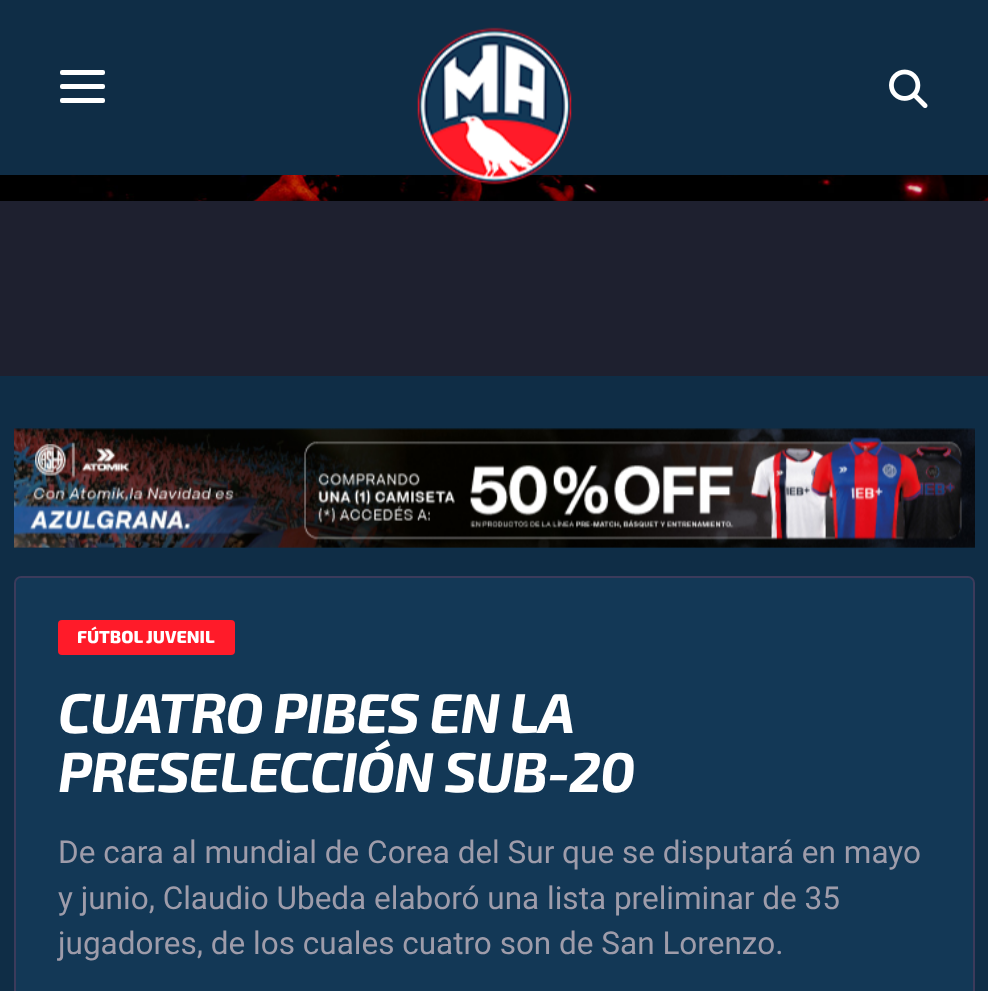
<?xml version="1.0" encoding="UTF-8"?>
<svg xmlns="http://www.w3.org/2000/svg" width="988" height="991">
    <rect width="100%" height="100%" fill="#1E202F"/>
    <rect x="0" y="0" width="988" height="175" fill="#0F2D46"/>
    <rect x="60" y="70" width="45" height="5" rx="2" fill="#FFFFFF"/>
    <rect x="60" y="84" width="45" height="5" rx="2" fill="#FFFFFF"/>
    <rect x="60" y="98" width="45" height="5" rx="2" fill="#FFFFFF"/>
    <image x="889" y="69" width="39" height="39" href="img_01.png"/>
    <image x="0" y="175" width="988" height="26" href="img_03.png"/>
    <image x="417" y="27" width="155" height="158" href="img_02.png"/>
    <rect x="0" y="376" width="988" height="615" fill="#0F2D46"/>
    <image x="14" y="428" width="961" height="120" href="img_04.png"/>
    <rect x="15" y="577" width="959" height="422" rx="6" fill="#133856" stroke="#3C3B5B" stroke-width="2"/>
    <rect x="58" y="620" width="177" height="35" rx="4" fill="#FF1B29"/>
    <text x="77" y="643" font-family="'Exo 2'" font-size="17.5" font-weight="800" fill="#FFFFFF">FÚTBOL JUVENIL</text>
    <text font-family="'Exo 2'" font-size="56" font-weight="700" font-style="italic" letter-spacing="-1.1" fill="#FFFFFF">
        <tspan x="58" y="733" word-spacing="-0.5">CUATRO PIBES EN LA</tspan>
        <tspan x="58" y="792">PRESELECCIÓN SUB-20</tspan>
    </text>
    <text font-family="Roboto" font-size="31.5" fill="#9E9CAA">
        <tspan x="58" y="863">De cara al mundial de Corea del Sur que se disputará en mayo</tspan>
        <tspan x="58" y="909">y junio, Claudio Ubeda elaboró una lista preliminar de 35</tspan>
        <tspan x="58" y="954">jugadores, de los cuales cuatro son de San Lorenzo.</tspan>
    </text>
</svg>
